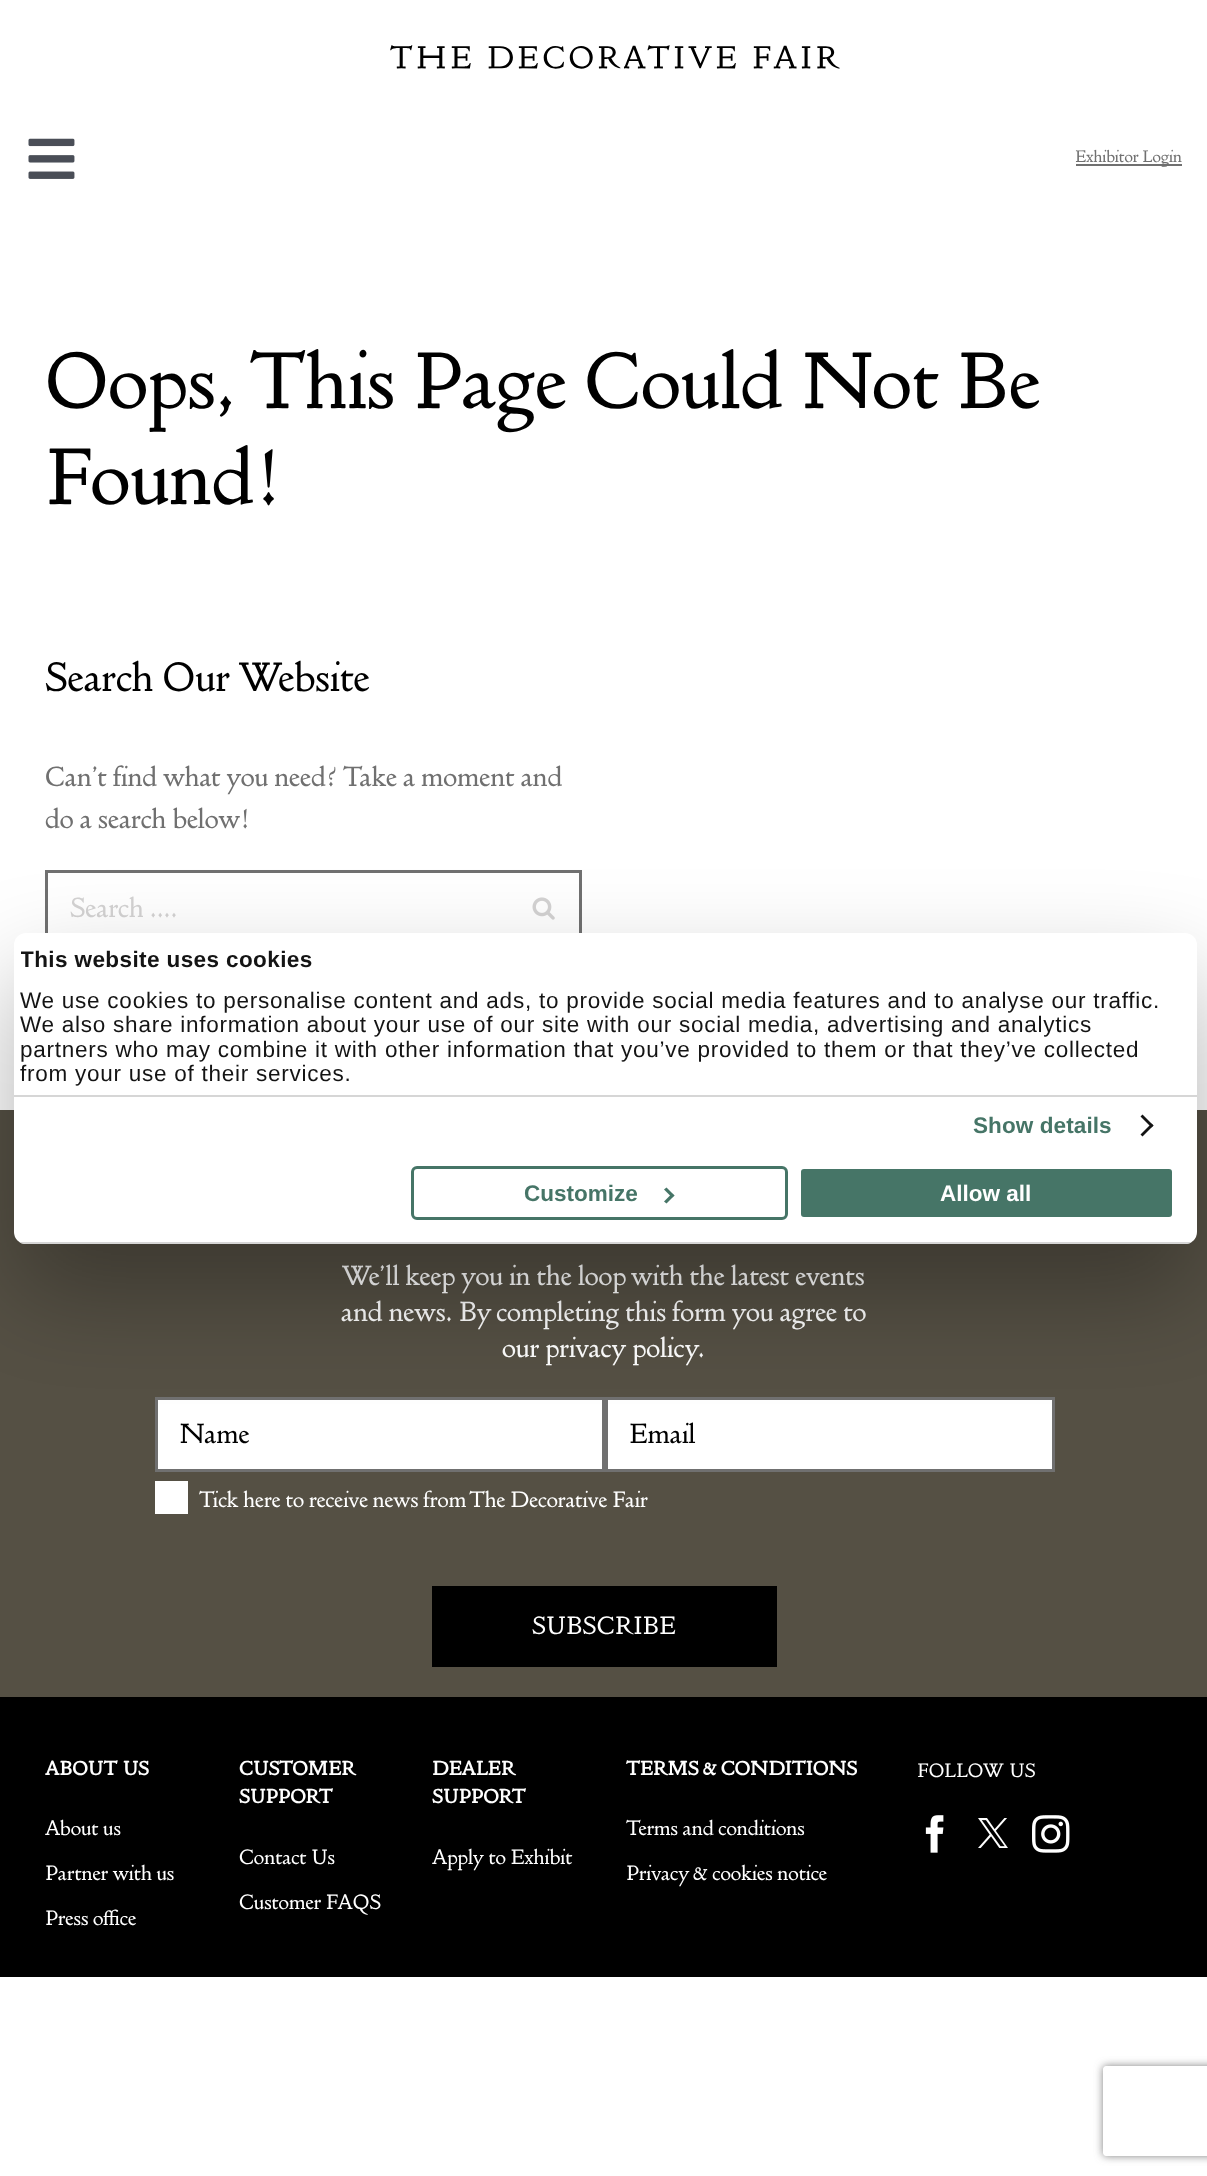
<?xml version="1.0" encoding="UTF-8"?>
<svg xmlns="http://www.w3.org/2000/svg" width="1207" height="2176">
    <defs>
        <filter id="blur1" x="-50%" y="-200%" width="200%" height="500%"><feGaussianBlur stdDeviation="51"/></filter>
        <clipPath id="clip1"><rect x="21" y="941" width="1167" height="145"/></clipPath>
        <clipPath id="clip2"><rect x="14" y="933" width="1183" height="311" rx="12"/></clipPath>
        <clipPath id="clip3"><path d="M 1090 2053 H 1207 V 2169 H 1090 Z M 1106 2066 H 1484 C 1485.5 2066 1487 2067.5 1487 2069 V 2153 C 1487 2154.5 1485.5 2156 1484 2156 H 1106 C 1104.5 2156 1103 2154.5 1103 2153 V 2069 C 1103 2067.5 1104.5 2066 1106 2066 Z" clip-rule="evenodd"/></clipPath>
        <filter id="blur2" x="-50%" y="-200%" width="200%" height="500%"><feGaussianBlur stdDeviation="4"/></filter>
    </defs>
    <rect width="100%" height="100%" fill="#FFFFFF"/>
    <image x="390" y="45" width="450" height="24" href="img_01.png"/>
    <image x="28" y="138" width="47" height="41" href="img_02.png"/>
    <rect x="1076" y="164" width="106" height="2" fill="#707070"/>
    <text x="1075" y="162" font-family="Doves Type" font-size="18" fill="#707070">Exhibitor Login</text>
    <text font-family="Doves Type" font-size="86" fill="#000000">
        <tspan x="45" y="408">Oops, This Page Could Not Be</tspan>
        <tspan x="45" y="504">Found!</tspan>
    </text>
    <text x="45" y="691" font-family="Doves Type" font-size="44.25" fill="#000000">Search Our Website</text>
    <text font-family="Doves Type" font-size="30" fill="#707070">
        <tspan x="45" y="786">Can’t find what you need? Take a moment and</tspan>
        <tspan x="45" y="828">do a search below!</tspan>
    </text>
    <rect x="46.5" y="871.5" width="534" height="72" fill="none" stroke="#707070" stroke-width="3"/>
    <text x="70" y="917" font-family="Doves Type" font-size="30" fill="#D3D2D2">Search ....</text>
    <image x="532" y="897" width="23" height="23" href="img_03.png"/>
    <rect x="0" y="1110" width="1207" height="587" fill="#555044"/>
    <text x="342" y="1285" font-family="Doves Type" font-size="30" fill="#FFFFFF">We’ll keep you in the loop with the latest events</text>
    <text x="341" y="1321" font-family="Doves Type" font-size="30" fill="#FFFFFF">and news. By completing this form you agree to</text>
    <text x="502" y="1357" font-family="Doves Type" font-size="30" fill="#FFFFFF">our privacy policy.</text>
    <rect x="156.5" y="1398.5" width="447" height="72" fill="#FFFFFF" stroke="#707070" stroke-width="3"/>
    <text x="179" y="1443" font-family="Doves Type" font-size="30" fill="#000000">Name</text>
    <rect x="606.5" y="1398.5" width="447" height="72" fill="#FFFFFF" stroke="#707070" stroke-width="3"/>
    <text x="629" y="1443" font-family="Doves Type" font-size="30" fill="#000000">Email</text>
    <rect x="155" y="1481" width="33" height="33" fill="#FFFFFF"/>
    <text x="199" y="1507" font-family="Doves Type" font-size="24" fill="#FFFFFF">Tick here to receive news from The Decorative Fair</text>
    <rect x="432" y="1586" width="345" height="81" fill="#000000"/>
    <text x="532" y="1634" font-family="Doves Type" font-size="27" fill="#FFFFFF">SUBSCRIBE</text>
    <rect x="0" y="1697" width="1207" height="280" fill="#000000"/>
    <text x="45" y="1775" font-family="Doves Type" font-size="21" font-weight="700" fill="#FFFFFF">ABOUT US</text>
    <text x="45" y="1835" font-family="Doves Type" font-size="22.5" fill="#FFFFFF">About us</text>
    <text x="45" y="1880" font-family="Doves Type" font-size="22.5" fill="#FFFFFF">Partner with us</text>
    <text x="45" y="1925" font-family="Doves Type" font-size="22.5" fill="#FFFFFF">Press office</text>
    <text font-family="Doves Type" font-size="21" font-weight="700" fill="#FFFFFF">
        <tspan x="239" y="1775">CUSTOMER</tspan>
        <tspan x="239" y="1803">SUPPORT</tspan>
    </text>
    <text x="239" y="1864" font-family="Doves Type" font-size="22.5" fill="#FFFFFF">Contact Us</text>
    <text x="239" y="1909" font-family="Doves Type" font-size="22.5" fill="#FFFFFF">Customer FAQS</text>
    <text font-family="Doves Type" font-size="21" font-weight="700" fill="#FFFFFF">
        <tspan x="432" y="1775">DEALER</tspan>
        <tspan x="432" y="1803">SUPPORT</tspan>
    </text>
    <text x="432" y="1864" font-family="Doves Type" font-size="22.5" fill="#FFFFFF">Apply to Exhibit</text>
    <text x="626" y="1775" font-family="Doves Type" font-size="21" font-weight="700" fill="#FFFFFF">TERMS &amp; CONDITIONS</text>
    <text x="626" y="1835" font-family="Doves Type" font-size="22.5" fill="#FFFFFF">Terms and conditions</text>
    <text x="626" y="1880" font-family="Doves Type" font-size="22.5" fill="#FFFFFF">Privacy &amp; cookies notice</text>
    <text x="917" y="1777" font-family="Doves Type" font-size="21" fill="#FFFFFF">FOLLOW US</text>
    <image x="925" y="1815" width="19" height="38" href="img_04.png"/>
    <image x="978" y="1818" width="30" height="30" href="img_05.png"/>
    <image x="1032" y="1815" width="38" height="38" href="img_06.png"/>
    <rect x="14" y="981" width="1183" height="311" rx="12" fill="#000000" fill-opacity="0.3" filter="url(#blur1)"/>
    <rect x="14" y="933" width="1183" height="311" rx="12" fill="#FFFFFF"/>
    <rect x="14" y="1095" width="1183" height="2" fill="#D6D6D6"/>
    <g clip-path="url(#clip1)">
        <text x="20" y="967" font-family="Liberation Sans" font-size="22.5" font-weight="700" letter-spacing="0.4" fill="#141414">This website uses cookies</text>
    </g>
    <text font-family="Liberation Sans" font-size="22.5" letter-spacing="0.75" fill="#141414">
        <tspan x="20" y="1008">We use cookies to personalise content and ads, to provide social media features and to analyse our traffic.</tspan>
        <tspan x="20" y="1032">We also share information about your use of our site with our social media, advertising and analytics</tspan>
        <tspan x="20" y="1057">partners who may combine it with other information that you’ve provided to them or that they’ve collected</tspan>
        <tspan x="20" y="1081">from your use of their services.</tspan>
    </text>
    <text x="973" y="1133" font-family="Liberation Sans" font-size="22.5" font-weight="700" letter-spacing="0.1" fill="#467567">Show details</text>
    <path d="M 1142.5 1114.5 L 1153.5 1125.5 L 1151.5 1127.5 L 1140.5 1116.5 Z" fill="#141414"/>
    <path d="M 1151.5 1123.5 L 1153.5 1125.5 L 1142.5 1136.5 L 1140.5 1134.5 Z" fill="#141414"/>
    <g clip-path="url(#clip2)">
        <rect x="14" y="1242" width="1183" height="2" fill="#D6D6D6"/>
    </g>
    <rect x="412.5" y="1167.5" width="374" height="51" rx="4.5" fill="none" stroke="#467567" stroke-width="3"/>
    <text x="524" y="1201" font-family="Liberation Sans" font-size="22.5" font-weight="700" fill="#467567">Customize</text>
    <path d="M 666.5 1187.5 L 674.5 1195.5 L 672 1197.5 L 664 1189.5 Z" fill="#467567"/>
    <path d="M 672 1193.5 L 674.5 1195.5 L 666.5 1203.5 L 664 1201.5 Z" fill="#467567"/>
    <rect x="799.5" y="1167.5" width="374" height="51" rx="4.5" fill="#467567" stroke="#FFFFFF" stroke-width="3"/>
    <text x="940" y="1201" font-family="Liberation Sans" font-size="22.5" font-weight="700" fill="#FFFFFF">Allow all</text>
    <g clip-path="url(#clip3)">
        <rect x="1103" y="2066" width="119" height="90" rx="3" fill="#808080" filter="url(#blur2)"/>
    </g>
</svg>
